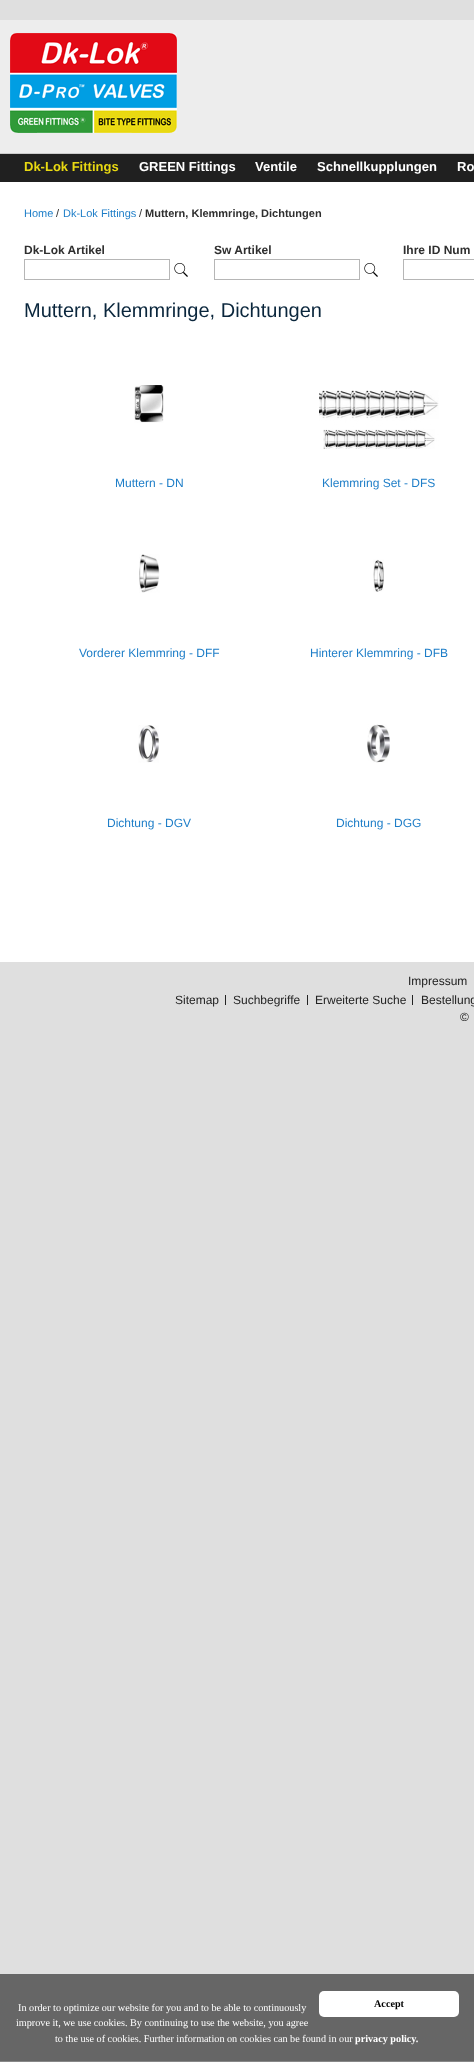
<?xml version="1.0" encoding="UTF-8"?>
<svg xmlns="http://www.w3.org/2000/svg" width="474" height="2062">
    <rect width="100%" height="100%" fill="#DFDFDF"/>
    <rect x="0" y="20" width="474" height="133" fill="#EDEDED"/>
    <rect x="0" y="153" width="474" height="1" fill="#CCCCCC"/>
    <image x="10" y="33" width="167" height="100" href="img_01.png"/>
    <rect x="0" y="154" width="474" height="28" fill="#202020"/>
    <text x="24" y="171" font-family="Liberation Sans" font-size="13" font-weight="700" fill="#E9D912">Dk-Lok Fittings</text>
    <text x="139" y="171" font-family="Liberation Sans" font-size="13" font-weight="700" fill="#FFFFFF">GREEN Fittings</text>
    <text x="255" y="171" font-family="Liberation Sans" font-size="13" font-weight="700" fill="#FFFFFF">Ventile</text>
    <text x="317" y="171" font-family="Liberation Sans" font-size="13" font-weight="700" fill="#FFFFFF">Schnellkupplungen</text>
    <text x="457" y="171" font-family="Liberation Sans" font-size="13" font-weight="700" fill="#FFFFFF">Ro</text>
    <rect x="0" y="182" width="474" height="780" fill="#FFFFFF"/>
    <text x="24" y="217" font-family="Liberation Sans" font-size="11" fill="#1E7EC8">Home</text>
    <text x="56" y="217" font-family="Liberation Sans" font-size="11" fill="#2F2F2F">/</text>
    <text x="63" y="217" font-family="Liberation Sans" font-size="11" fill="#1E7EC8">Dk-Lok Fittings</text>
    <text x="139" y="217" font-family="Liberation Sans" font-size="11" fill="#2F2F2F">/</text>
    <text x="145" y="217" font-family="Liberation Sans" font-size="11" font-weight="700" fill="#2F2F2F">Muttern, Klemmringe, Dichtungen</text>
    <text x="24" y="254" font-family="Liberation Sans" font-size="12" font-weight="700" fill="#2F2F2F">Dk-Lok Artikel</text>
    <rect x="24.5" y="259.5" width="145" height="20" fill="none" stroke="#B6B6B6"/>
    <image x="174" y="263" width="14" height="14" href="img_02.png"/>
    <text x="214" y="254" font-family="Liberation Sans" font-size="12" font-weight="700" fill="#2F2F2F">Sw Artikel</text>
    <rect x="214.5" y="259.5" width="145" height="20" fill="none" stroke="#B6B6B6"/>
    <image x="364" y="263" width="14" height="14" href="img_02.png"/>
    <text x="403" y="254" font-family="Liberation Sans" font-size="12" font-weight="700" fill="#2F2F2F">Ihre ID Num</text>
    <rect x="403.5" y="259.5" width="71" height="20" fill="none" stroke="#B6B6B6"/>
    <text x="24" y="317" font-family="Liberation Sans" font-size="20" fill="#0A263C">Muttern, Klemmringe, Dichtungen</text>
    <image x="134" y="385" width="30" height="38" href="img_03.png"/>
    <text x="115" y="487" font-family="Liberation Sans" font-size="12" fill="#1E7EC8">Muttern - DN</text>
    <image x="319" y="390" width="120" height="59" href="img_04.png"/>
    <text x="322" y="487" font-family="Liberation Sans" font-size="12" fill="#1E7EC8">Klemmring Set - DFS</text>
    <image x="139" y="554" width="21" height="39" href="img_05.png"/>
    <text x="79" y="657" font-family="Liberation Sans" font-size="12" fill="#1E7EC8">Vorderer Klemmring - DFF</text>
    <image x="373" y="559" width="11" height="33" href="img_06.png"/>
    <text x="310" y="657" font-family="Liberation Sans" font-size="12" fill="#1E7EC8">Hinterer Klemmring - DFB</text>
    <image x="138" y="725" width="21" height="38" href="img_07.png"/>
    <text x="107" y="827" font-family="Liberation Sans" font-size="12" fill="#1E7EC8">Dichtung - DGV</text>
    <image x="367" y="724" width="23" height="39" href="img_08.png"/>
    <text x="336" y="827" font-family="Liberation Sans" font-size="12" fill="#1E7EC8">Dichtung - DGG</text>
    <text x="408" y="985" font-family="Liberation Sans" font-size="12" fill="#222222">Impressum</text>
    <text x="175" y="1004" font-family="Liberation Sans" font-size="12" fill="#222222">Sitemap</text>
    <rect x="225" y="995" width="1" height="10" fill="#222222"/>
    <text x="233" y="1004" font-family="Liberation Sans" font-size="12" fill="#222222">Suchbegriffe</text>
    <rect x="307" y="995" width="1" height="10" fill="#222222"/>
    <text x="315" y="1004" font-family="Liberation Sans" font-size="12" fill="#222222">Erweiterte Suche</text>
    <rect x="412" y="995" width="1" height="10" fill="#222222"/>
    <text x="421" y="1004" font-family="Liberation Sans" font-size="12" fill="#222222">Bestellung</text>
    <text x="460" y="1021" font-family="Liberation Sans" font-size="12" fill="#222222">©</text>
    <rect x="0" y="1974" width="474" height="87" fill="#666666"/>
    <rect x="0" y="2061" width="474" height="1" fill="#888888"/>
    <rect x="319" y="1991" width="140" height="26" rx="5" fill="#FFFFFF"/>
    <text x="374" y="2007" font-family="Liberation Serif" font-size="10.2" font-weight="700" fill="#000000">Accept</text>
    <text x="18" y="2011" font-family="Liberation Serif" font-size="10.2" fill="#FFFFFF">In order to optimize our website for you and to be able to continuously</text>
    <text x="16" y="2026" font-family="Liberation Serif" font-size="10.2" fill="#FFFFFF">improve it, we use cookies. By continuing to use the website, you agree</text>
    <text x="55" y="2042" font-family="Liberation Serif" font-size="10.2" fill="#FFFFFF">to the use of cookies. Further information on cookies can be found in our</text>
    <text x="355" y="2042" font-family="Liberation Serif" font-size="10.2" font-weight="700" fill="#FFFFFF">privacy policy.</text>
</svg>
